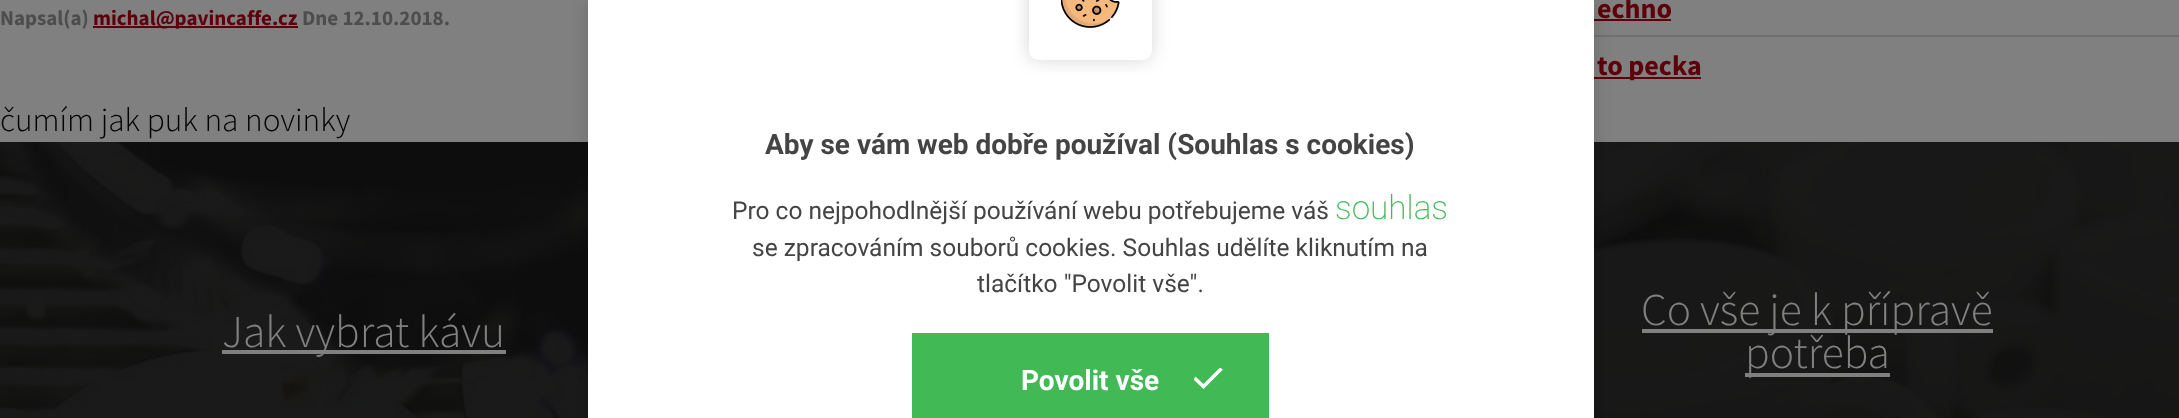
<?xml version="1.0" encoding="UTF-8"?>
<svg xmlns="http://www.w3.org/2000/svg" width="2179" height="418">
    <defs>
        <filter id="blur1" x="-50%" y="-200%" width="200%" height="500%"><feGaussianBlur stdDeviation="9"/></filter>
        <clipPath id="clip1"><rect x="1194" y="368" width="29" height="21"/></clipPath>
    </defs>
    <rect width="100%" height="100%" fill="#808080"/>
    <text x="0" y="25" font-family="Source Sans Pro" font-size="21" font-weight="700" fill="#4D4D4D">Napsal(a)</text>
    <rect x="93" y="26" width="205" height="2" fill="#5D000B"/>
    <text x="93" y="25" font-family="Source Sans Pro" font-size="21" font-weight="700" fill="#5D000B">michal@pavincaffe.cz</text>
    <text x="302" y="25" font-family="Source Sans Pro" font-size="21" font-weight="700" fill="#4D4D4D">Dne 12.10.2018.</text>
    <text x="0" y="131" font-family="Source Sans Pro" font-size="33.25" font-weight="300" fill="#020300">čumím jak puk na novinky</text>
    <text x="1597" y="18" font-family="Source Sans Pro" font-size="28" font-weight="700" fill="#5D000B">echno</text>
    <rect x="1594" y="19" width="77" height="2" fill="#5D000B"/>
    <rect x="1594" y="35" width="585" height="2" fill="#6F6F6F"/>
    <rect x="1594" y="77" width="107" height="2" fill="#5D000B"/>
    <text x="1597" y="75" font-family="Source Sans Pro" font-size="28" font-weight="700" fill="#5D000B">to pecka</text>
    <image x="0" y="142" width="588" height="276" href="img_02.png"/>
    <image x="1594" y="142" width="585" height="276" href="img_03.png"/>
    <rect x="1594" y="142" width="585" height="276" fill="#000000" fill-opacity="0.8"/>
    <rect x="588" y="0" width="1006" height="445" fill="#000000" fill-opacity="0.16" filter="url(#blur1)"/>
    <rect x="588" y="0" width="1006" height="418" fill="#FFFFFF"/>
    <rect x="1029" y="-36" width="123" height="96" rx="9" fill="#000000" fill-opacity="0.16" filter="url(#blur1)"/>
    <rect x="1029" y="-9" width="123" height="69" rx="9" fill="#FFFFFF"/>
    <image x="1061" y="0" width="59" height="28" href="img_01.png"/>
    <text x="765" y="154" font-family="Roboto" font-size="28" font-weight="700" fill="#444444">Aby se vám web dobře používal (Souhlas s cookies)</text>
    <text x="732" y="219" font-family="Roboto" font-size="24.5" fill="#444444">Pro co nejpohodlnější používání webu potřebujeme váš</text>
    <text x="1335" y="219" font-family="Roboto" font-size="33.25" font-weight="200" fill="#41BA55">souhlas</text>
    <text x="752" y="256" font-family="Roboto" font-size="24.5" fill="#444444">se zpracováním souborů cookies. Souhlas udělíte kliknutím na</text>
    <text x="977" y="292" font-family="Roboto" font-size="24.5" fill="#444444">tlačítko "Povolit vše".</text>
    <rect x="912" y="333" width="357" height="85" fill="#41BA55"/>
    <text x="1021" y="390" font-family="Roboto" font-size="28" font-weight="700" fill="#FFFFFF">Povolit vše</text>
    <g clip-path="url(#clip1)">
        <path d="M 1194.5 378 L 1203.5 386.5 L 1221.5 368.5" fill="none" stroke="#FFFFFF" stroke-width="3.5"/>
    </g>
    <rect x="222" y="350" width="284" height="4" fill="#808080"/>
    <text x="222" y="347" font-family="Source Sans Pro" font-size="45.5" font-weight="300" fill="#808080">Jak vybrat kávu</text>
    <rect x="1642" y="329" width="351" height="4" fill="#808080"/>
    <text x="1641" y="325" font-family="Source Sans Pro" font-size="45.5" font-weight="300" fill="#808080">Co vše je k přípravě</text>
    <rect x="1745" y="373" width="145" height="4" fill="#808080"/>
    <text x="1745" y="368" font-family="Source Sans Pro" font-size="45.5" font-weight="300" fill="#808080">potřeba</text>
</svg>
